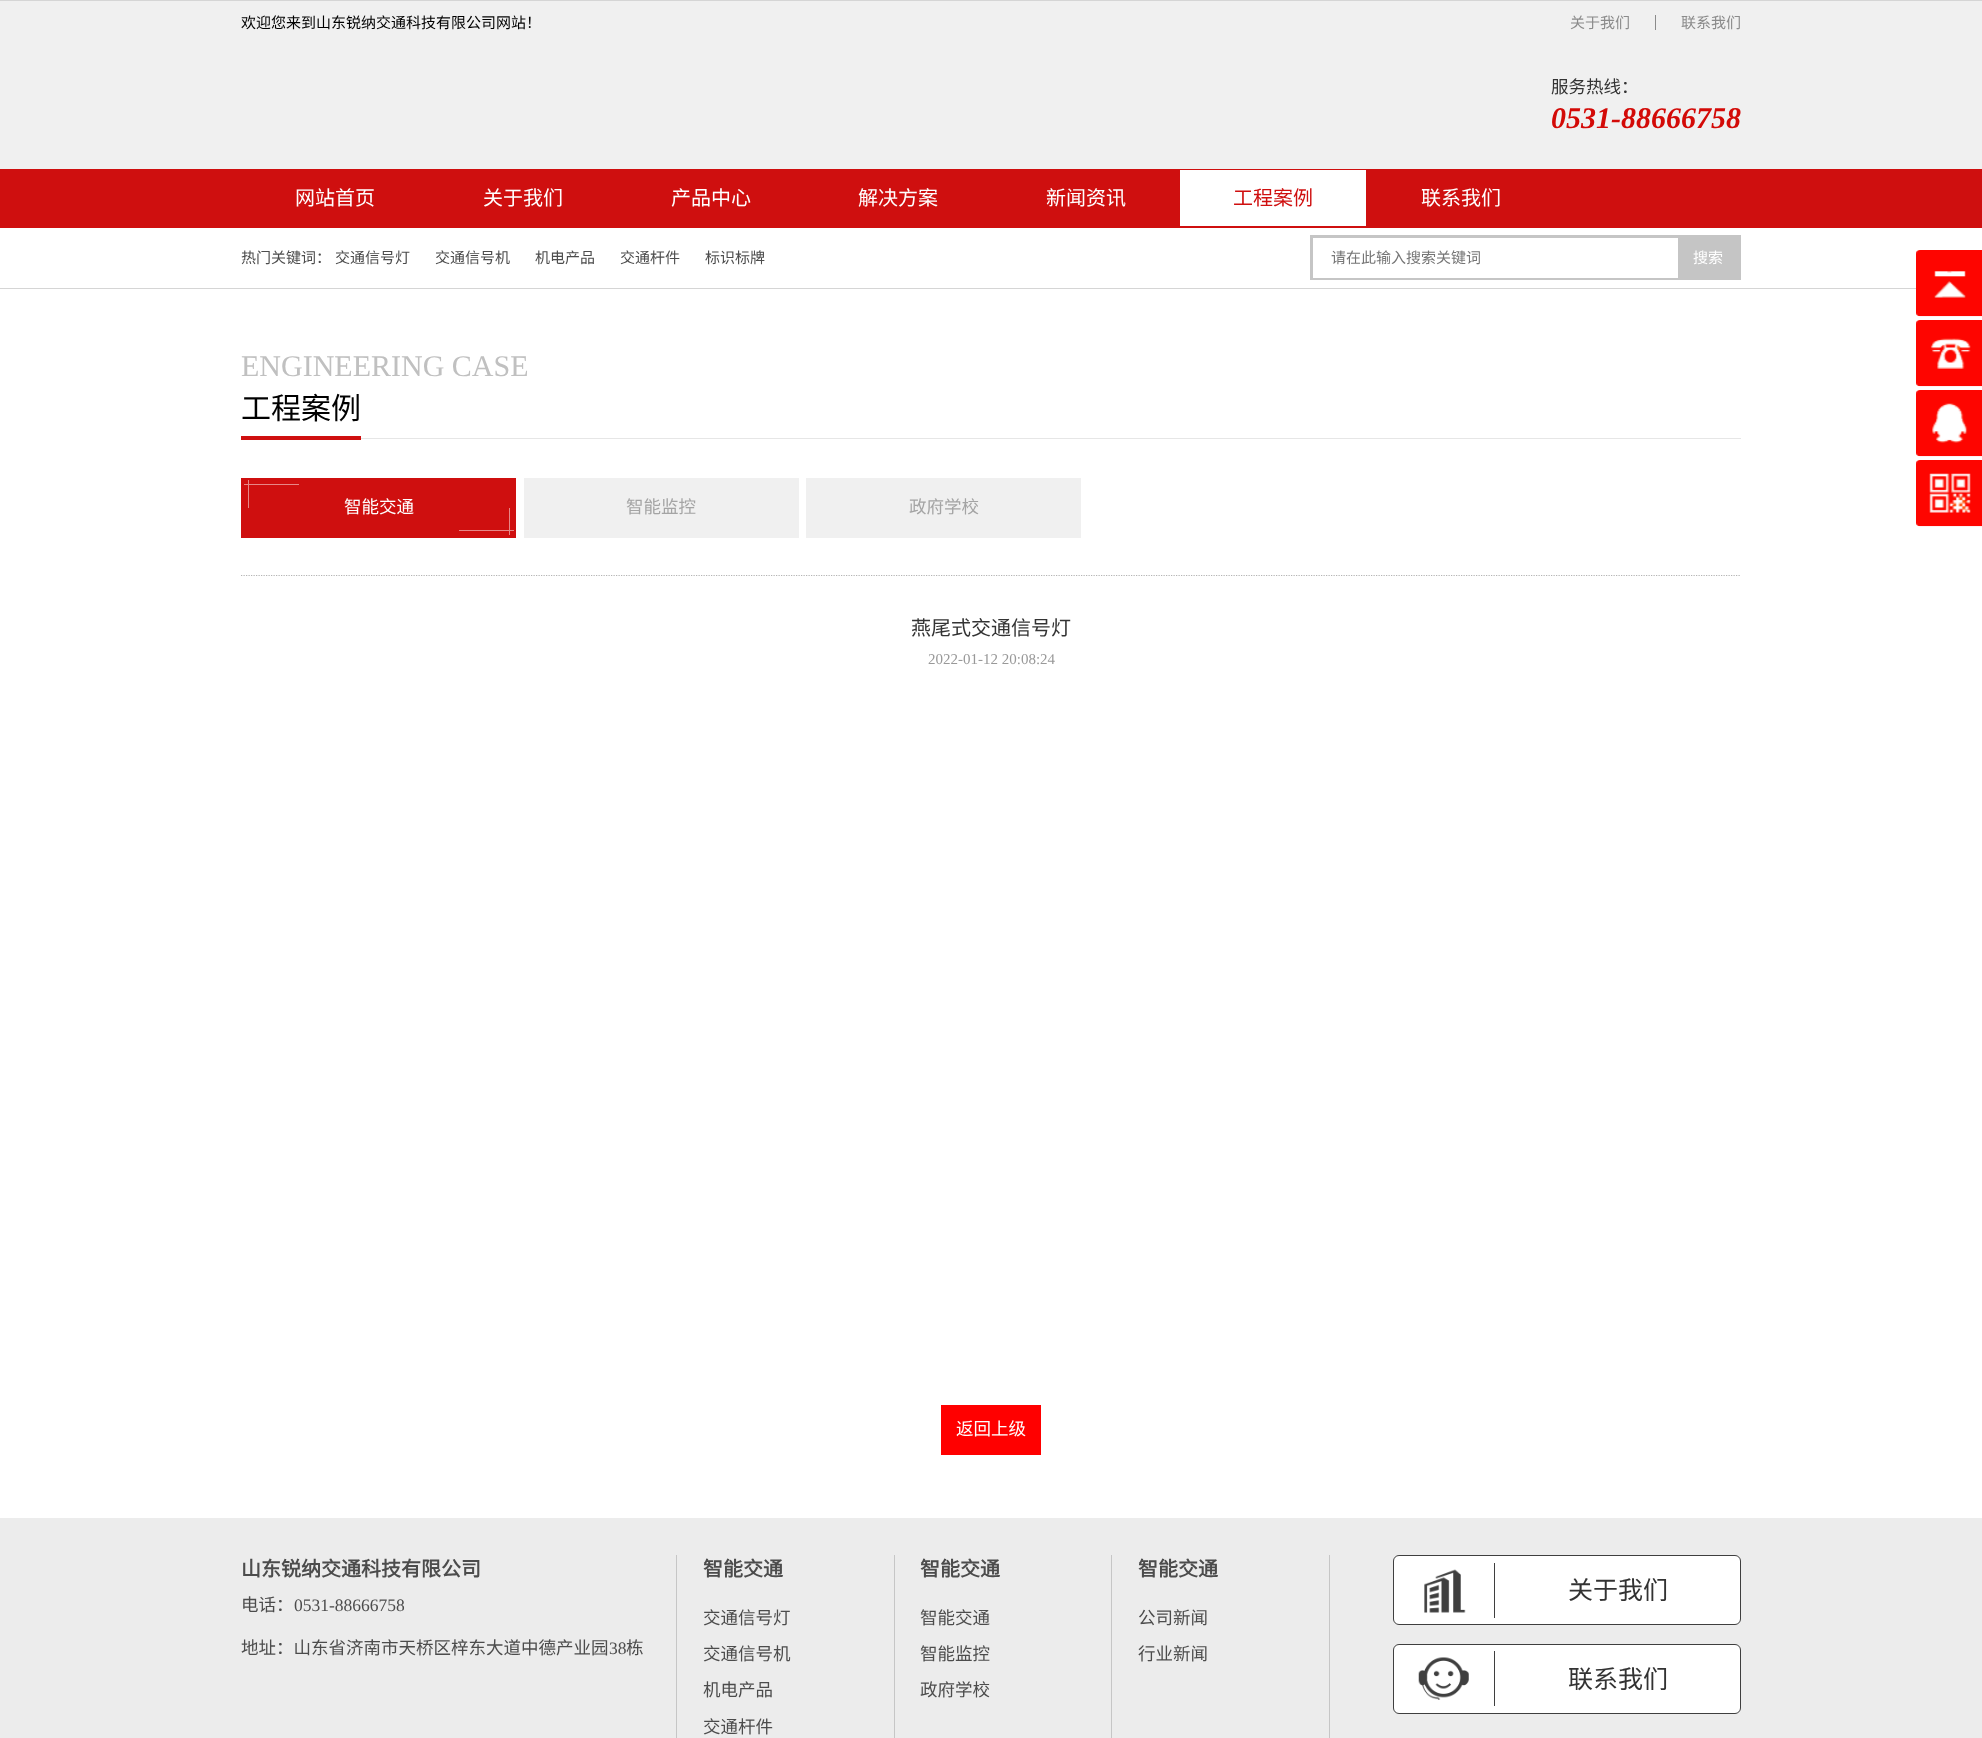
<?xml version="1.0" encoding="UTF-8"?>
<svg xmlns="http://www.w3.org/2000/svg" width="1982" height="1738">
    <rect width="100%" height="100%" fill="#FFFFFF"/>
    <rect x="0" y="1" width="1982" height="168" fill="#F0F0F0"/>
    <rect x="0" y="0" width="1982" height="1" fill="#D5D5D5"/>
    <text x="241" y="28" font-family="Noto Sans CJK SC" font-size="15" fill="#000000">欢迎您来到山东锐纳交通科技有限公司网站！</text>
    <text x="1570" y="28" font-family="Noto Sans CJK SC" font-size="15" fill="#8B8B8B">关于我们</text>
    <rect x="1655" y="15" width="1" height="15" fill="#8B8B8B"/>
    <text x="1681" y="28" font-family="Noto Sans CJK SC" font-size="15" fill="#8B8B8B">联系我们</text>
    <text x="1551" y="93" font-family="Noto Sans CJK SC" font-size="17.5" fill="#333333">服务热线：</text>
    <text x="1551" y="128" font-family="Liberation Serif" font-size="30" font-weight="700" font-style="italic" fill="#D30A07">0531-88666758</text>
    <rect x="0" y="169" width="1982" height="59" fill="#CF0F0F"/>
    <text x="295" y="205" font-family="Noto Sans CJK SC" font-size="20" fill="#FFFFFF">网站首页</text>
    <text x="483" y="205" font-family="Noto Sans CJK SC" font-size="20" fill="#FFFFFF">关于我们</text>
    <text x="671" y="205" font-family="Noto Sans CJK SC" font-size="20" fill="#FFFFFF">产品中心</text>
    <text x="858" y="205" font-family="Noto Sans CJK SC" font-size="20" fill="#FFFFFF">解决方案</text>
    <text x="1046" y="205" font-family="Noto Sans CJK SC" font-size="20" fill="#FFFFFF">新闻资讯</text>
    <rect x="1180" y="170" width="186" height="56" fill="#FFFFFF"/>
    <text x="1233" y="205" font-family="Noto Sans CJK SC" font-size="20" fill="#CF0F0F">工程案例</text>
    <text x="1421" y="205" font-family="Noto Sans CJK SC" font-size="20" fill="#FFFFFF">联系我们</text>
    <rect x="0" y="288" width="1916" height="1" fill="#D5D5D5"/>
    <text x="241" y="263" font-family="Noto Sans CJK SC" font-size="15" fill="#4C4C4C">热门关键词：</text>
    <text x="335" y="263" font-family="Noto Sans CJK SC" font-size="15" fill="#4C4C4C">交通信号灯</text>
    <text x="435" y="263" font-family="Noto Sans CJK SC" font-size="15" fill="#4C4C4C">交通信号机</text>
    <text x="535" y="263" font-family="Noto Sans CJK SC" font-size="15" fill="#4C4C4C">机电产品</text>
    <text x="620" y="263" font-family="Noto Sans CJK SC" font-size="15" fill="#4C4C4C">交通杆件</text>
    <text x="705" y="263" font-family="Noto Sans CJK SC" font-size="15" fill="#4C4C4C">标识标牌</text>
    <rect x="1311.5" y="236.5" width="428" height="42" fill="none" stroke="#C5C5C5" stroke-width="3"/>
    <rect x="1313" y="277" width="365" height="1" fill="#FFFFFF"/>
    <text x="1331" y="263" font-family="Noto Sans CJK SC" font-size="15" fill="#757575">请在此输入搜索关键词</text>
    <rect x="1678" y="238" width="60" height="39" fill="#C5C5C5"/>
    <text x="1693" y="263" font-family="Noto Sans CJK SC" font-size="15" fill="#FFFFFF">搜索</text>
    <image x="1916" y="250" width="66" height="67" href="img_01.png"/>
    <image x="1916" y="320" width="66" height="67" href="img_02.png"/>
    <image x="1916" y="390" width="66" height="67" href="img_03.png"/>
    <image x="1916" y="460" width="66" height="67" href="img_04.png"/>
    <rect x="361" y="438" width="1380" height="1" fill="#E6E6E6"/>
    <text x="241" y="376" font-family="Liberation Serif" font-size="30" fill="#C0C0C0">ENGINEERING CASE</text>
    <rect x="241" y="436" width="120" height="4" fill="#CF0F0F"/>
    <text x="241" y="419" font-family="Noto Sans CJK SC" font-size="30" fill="#000000">工程案例</text>
    <rect x="241" y="478" width="275" height="60" fill="#CF0F0F"/>
    <rect x="244" y="484" width="55" height="1" fill="#E78787"/>
    <rect x="248" y="480" width="1" height="28" fill="#E78787"/>
    <text x="344" y="513" font-family="Noto Sans CJK SC" font-size="17.5" fill="#FFFFFF">智能交通</text>
    <rect x="459" y="530" width="55" height="1" fill="#E78787"/>
    <rect x="509" y="508" width="1" height="27" fill="#E78787"/>
    <rect x="524" y="478" width="275" height="60" fill="#F0F0F0"/>
    <text x="626" y="513" font-family="Noto Sans CJK SC" font-size="17.5" fill="#A4A4A4">智能监控</text>
    <rect x="806" y="478" width="275" height="60" fill="#F0F0F0"/>
    <text x="909" y="513" font-family="Noto Sans CJK SC" font-size="17.5" fill="#A4A4A4">政府学校</text>
    <path d="M 241 575.5 H 1741" fill="none" stroke="#B4B4B4" stroke-width="1.2" stroke-dasharray="1.25 1.25"/>
    <text x="911" y="635" font-family="Noto Sans CJK SC" font-size="20" fill="#333333">燕尾式交通信号灯</text>
    <text x="928" y="664" font-family="Liberation Serif" font-size="15" fill="#999999">2022-01-12 20:08:24</text>
    <rect x="941" y="1405" width="100" height="50" fill="#FF0000"/>
    <text x="956" y="1435" font-family="Noto Sans CJK SC" font-size="17.5" fill="#FFFFFF">返回上级</text>
    <rect x="0" y="1518" width="1982" height="220" fill="#ECECEC"/>
    <text x="241" y="1576" font-family="Noto Sans CJK SC" font-size="20" font-weight="700" fill="#4C4C4C">山东锐纳交通科技有限公司</text>
    <text x="241" y="1611" font-family="Noto Sans CJK SC" font-size="17.5" fill="#4C4C4C">电话：</text>
    <text x="294" y="1611" font-family="Liberation Serif" font-size="17.5" fill="#4C4C4C">0531-88666758</text>
    <text x="241" y="1654" font-family="Noto Sans CJK SC" font-size="17.5" fill="#4C4C4C">地址：山东省济南市天桥区梓东大道中德产业园</text>
    <text x="609" y="1654" font-family="Liberation Serif" font-size="17.5" fill="#4C4C4C">38</text>
    <text x="626" y="1654" font-family="Noto Sans CJK SC" font-size="17.5" fill="#4C4C4C">栋</text>
    <rect x="676" y="1555" width="1" height="183" fill="#C6C6C6"/>
    <text x="703" y="1576" font-family="Noto Sans CJK SC" font-size="20" font-weight="700" fill="#4C4C4C">智能交通</text>
    <text x="703" y="1624" font-family="Noto Sans CJK SC" font-size="17.5" fill="#4C4C4C">交通信号灯</text>
    <text x="703" y="1660" font-family="Noto Sans CJK SC" font-size="17.5" fill="#4C4C4C">交通信号机</text>
    <text x="703" y="1696" font-family="Noto Sans CJK SC" font-size="17.5" fill="#4C4C4C">机电产品</text>
    <text x="703" y="1733" font-family="Noto Sans CJK SC" font-size="17.5" fill="#4C4C4C">交通杆件</text>
    <rect x="894" y="1555" width="1" height="183" fill="#C6C6C6"/>
    <text x="920" y="1576" font-family="Noto Sans CJK SC" font-size="20" font-weight="700" fill="#4C4C4C">智能交通</text>
    <text x="920" y="1624" font-family="Noto Sans CJK SC" font-size="17.5" fill="#4C4C4C">智能交通</text>
    <text x="920" y="1660" font-family="Noto Sans CJK SC" font-size="17.5" fill="#4C4C4C">智能监控</text>
    <text x="920" y="1696" font-family="Noto Sans CJK SC" font-size="17.5" fill="#4C4C4C">政府学校</text>
    <rect x="1329" y="1555" width="1" height="183" fill="#C6C6C6"/>
    <rect x="1111" y="1555" width="1" height="183" fill="#C6C6C6"/>
    <text x="1138" y="1576" font-family="Noto Sans CJK SC" font-size="20" font-weight="700" fill="#4C4C4C">智能交通</text>
    <text x="1138" y="1624" font-family="Noto Sans CJK SC" font-size="17.5" fill="#4C4C4C">公司新闻</text>
    <text x="1138" y="1660" font-family="Noto Sans CJK SC" font-size="17.5" fill="#4C4C4C">行业新闻</text>
    <rect x="1393.5" y="1555.5" width="347" height="69" rx="5.5" fill="#FFFFFF" stroke="#3F3F3F"/>
    <image x="1424" y="1569" width="42" height="44" href="img_05.png"/>
    <rect x="1494" y="1563" width="1" height="55" fill="#3F3F3F"/>
    <text x="1568" y="1599" font-family="Noto Sans CJK SC" font-size="25" fill="#333333">关于我们</text>
    <rect x="1393.5" y="1644.5" width="347" height="69" rx="5.5" fill="#FFFFFF" stroke="#3F3F3F"/>
    <image x="1418" y="1657" width="51" height="43" href="img_06.png"/>
    <rect x="1494" y="1651" width="1" height="55" fill="#3F3F3F"/>
    <text x="1568" y="1688" font-family="Noto Sans CJK SC" font-size="25" fill="#333333">联系我们</text>
</svg>
